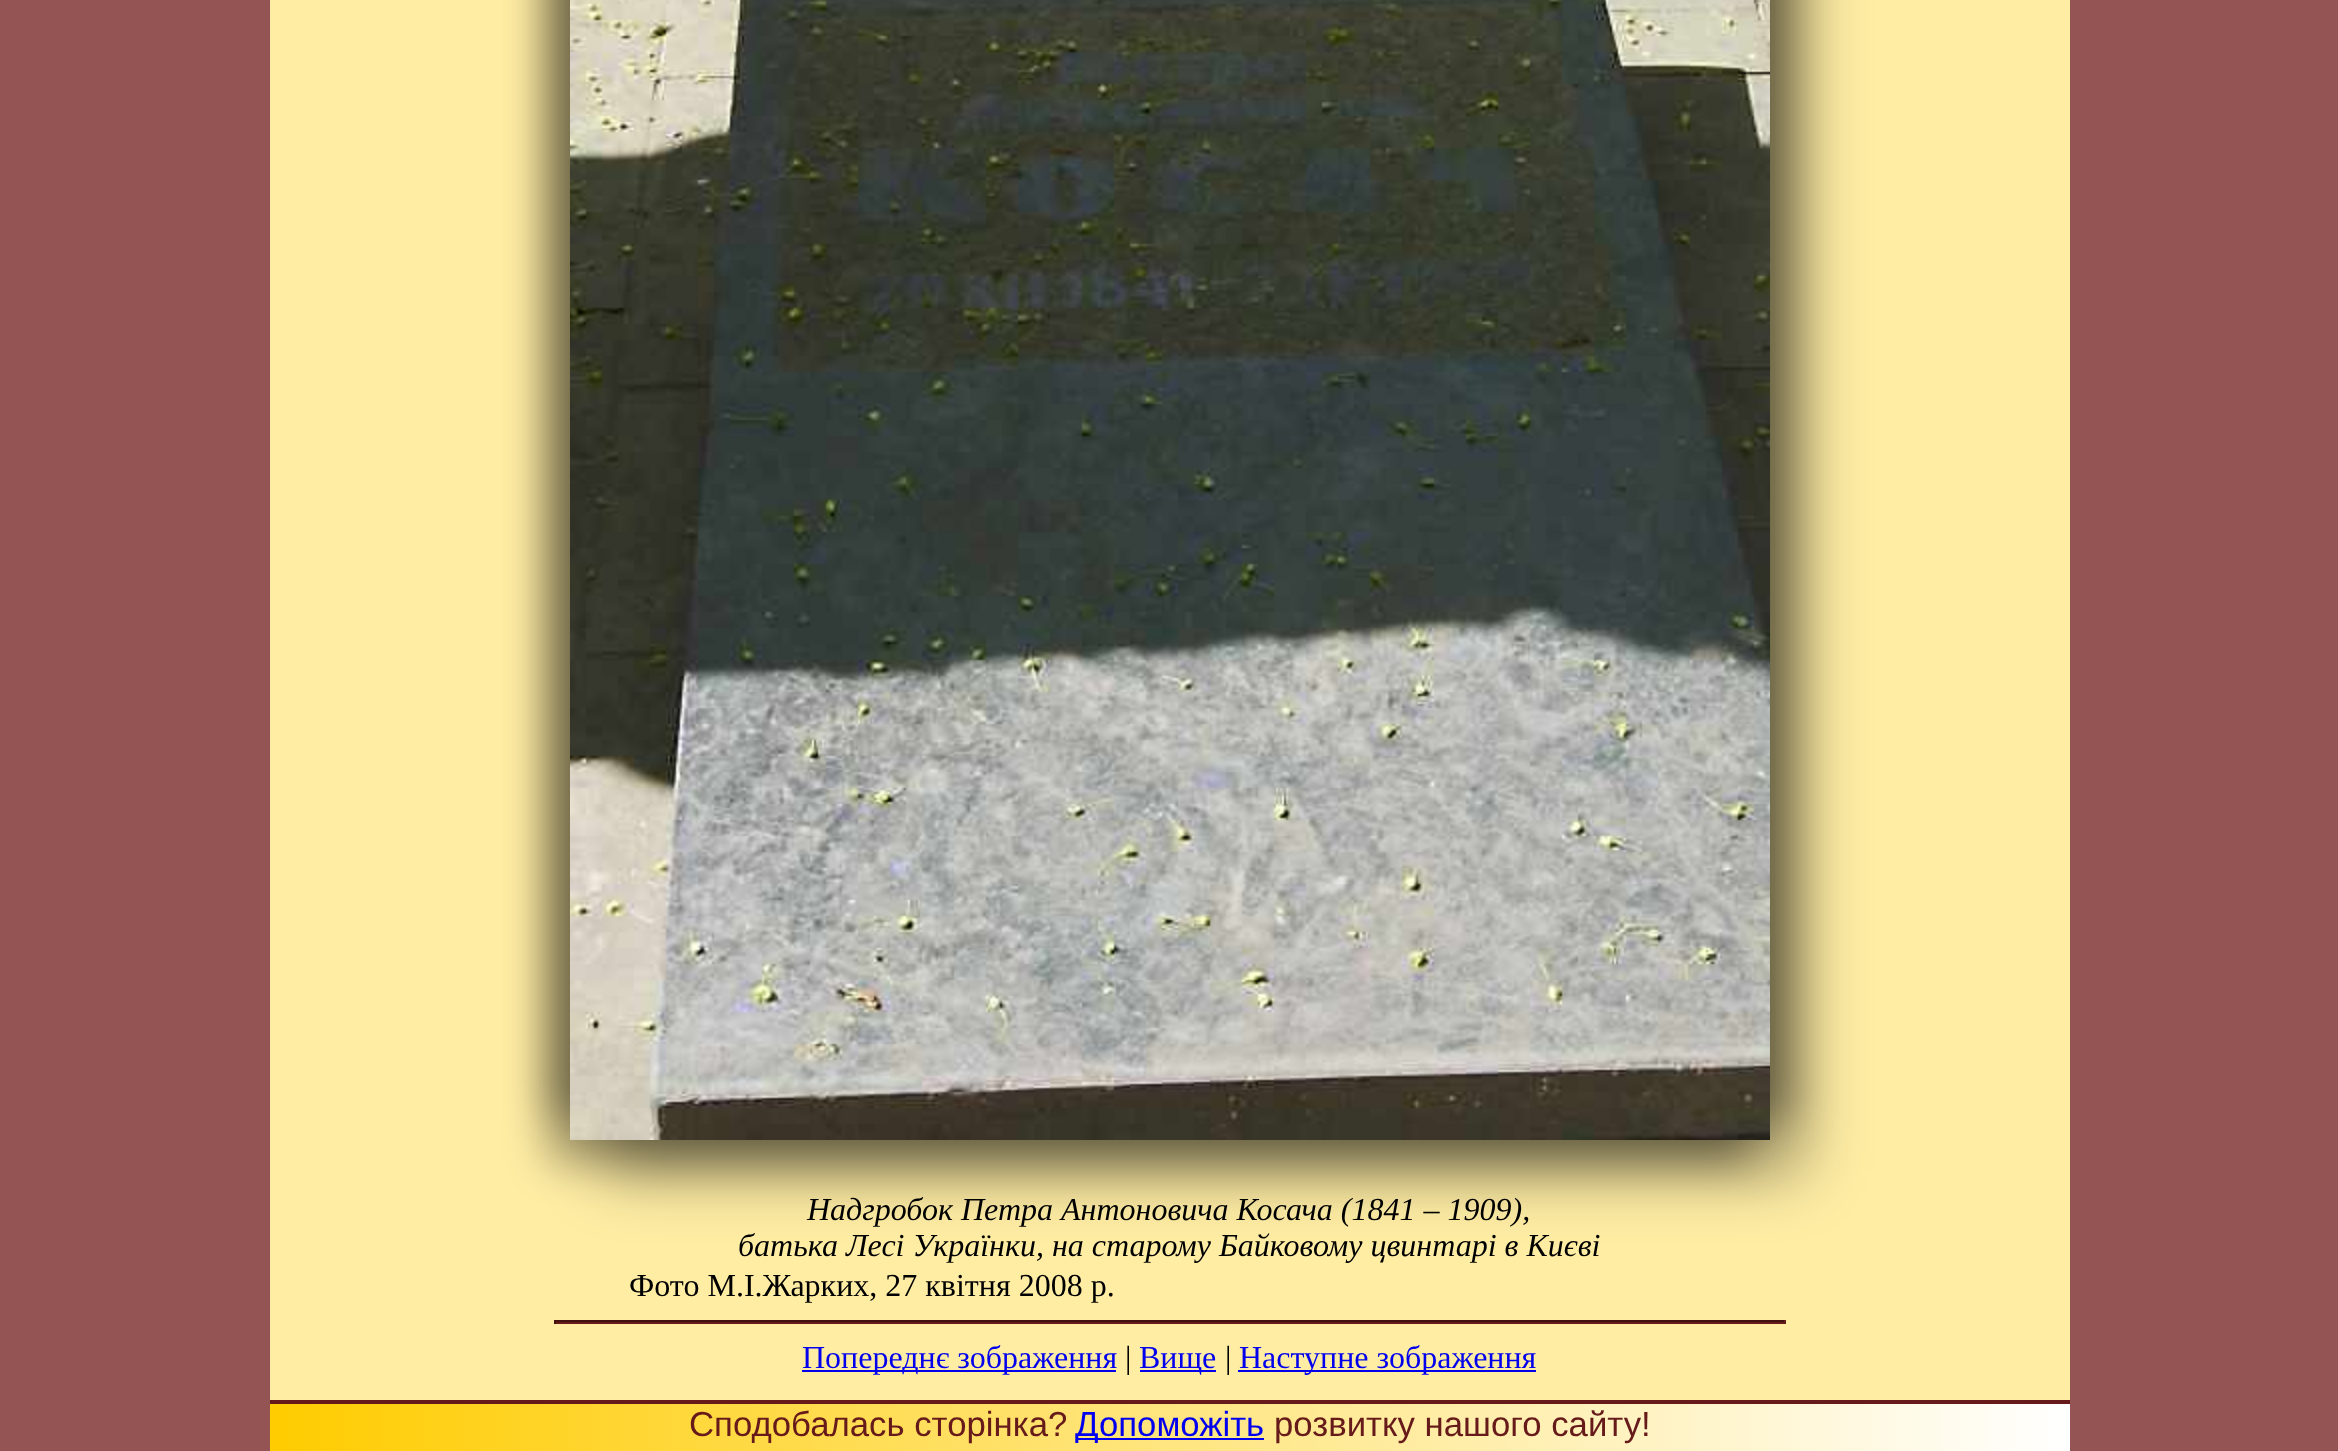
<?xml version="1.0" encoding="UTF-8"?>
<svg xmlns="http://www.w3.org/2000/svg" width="2338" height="1451">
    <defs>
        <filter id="blur1" x="-50%" y="-200%" width="200%" height="500%"><feGaussianBlur stdDeviation="32"/></filter>
        <filter id="blur2" x="-50%" y="-200%" width="200%" height="500%"><feGaussianBlur stdDeviation="20"/></filter>
        <linearGradient id="g1" gradientUnits="userSpaceOnUse" x1="270" y1="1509" x2="2070" y2="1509"><stop offset="0" stop-color="#FFCC00"/><stop offset="1" stop-color="#FFFFFF"/></linearGradient>
    </defs>
    <rect width="100%" height="100%" fill="#945454"/>
    <rect x="270" y="1400" width="1800" height="4" fill="#661A1A"/>
    <rect x="270" y="0" width="1800" height="1400" fill="#FFEDA4"/>
    <rect x="602" y="-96" width="1200" height="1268" fill="#000000" fill-opacity="0.4" filter="url(#blur1)"/>
    <rect x="594" y="-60" width="1200" height="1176" fill="#000000" fill-opacity="0.3" filter="url(#blur2)"/>
    <rect x="546" y="-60" width="1200" height="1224" fill="#000000" fill-opacity="0.3" filter="url(#blur2)"/>
    <rect x="546" y="-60" width="1200" height="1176" fill="#000000" fill-opacity="0.3" filter="url(#blur2)"/>
    <image x="570" y="0" width="1200" height="1140" href="img_01.png"/>
    <text x="807" y="1220" font-family="Liberation Serif" font-size="32" font-style="italic" fill="#000000">Надгробок Петра Антоновича Косача (1841 – 1909),</text>
    <text x="738" y="1256" font-family="Liberation Serif" font-size="32" font-style="italic" fill="#000000">батька Лесі Українки, на старому Байковому цвинтарі в Києві</text>
    <text x="629" y="1296" font-family="Liberation Serif" font-size="32" fill="#000000">Фото М.І.Жарких, 27 квітня 2008 р.</text>
    <rect x="554" y="1322" width="1232" height="2" fill="#661A1A"/>
    <rect x="554" y="1320" width="1232" height="2" fill="#441111"/>
    <rect x="1784" y="1320" width="2" height="4" fill="#661A1A"/>
    <rect x="554" y="1320" width="2" height="4" fill="#441111"/>
    <rect x="802" y="1370" width="314" height="2" fill="#0000EE"/>
    <text x="802" y="1368" font-family="Liberation Serif" font-size="32" fill="#0000EE">Попереднє зображення</text>
    <text x="1125" y="1368" font-family="Liberation Serif" font-size="32" fill="#000000">|</text>
    <rect x="1140" y="1370" width="76" height="2" fill="#0000EE"/>
    <text x="1139" y="1368" font-family="Liberation Serif" font-size="32" fill="#0000EE">Вище</text>
    <text x="1225" y="1368" font-family="Liberation Serif" font-size="32" fill="#000000">|</text>
    <rect x="1238" y="1370" width="298" height="2" fill="#0000EE"/>
    <text x="1239" y="1368" font-family="Liberation Serif" font-size="32" fill="#0000EE">Наступне зображення</text>
    <rect x="270" y="1404" width="1800" height="47" fill="url(#g1)"/>
    <text x="689" y="1436" font-family="Liberation Sans" font-size="34.75" fill="#661A1A">Сподобалась сторінка?</text>
    <rect x="1076" y="1438" width="188" height="2" fill="#0000EE"/>
    <text x="1075" y="1436" font-family="Liberation Sans" font-size="34.75" fill="#0000EE">Допоможіть</text>
    <text x="1274" y="1436" font-family="Liberation Sans" font-size="34.75" fill="#661A1A">розвитку нашого сайту!</text>
</svg>
